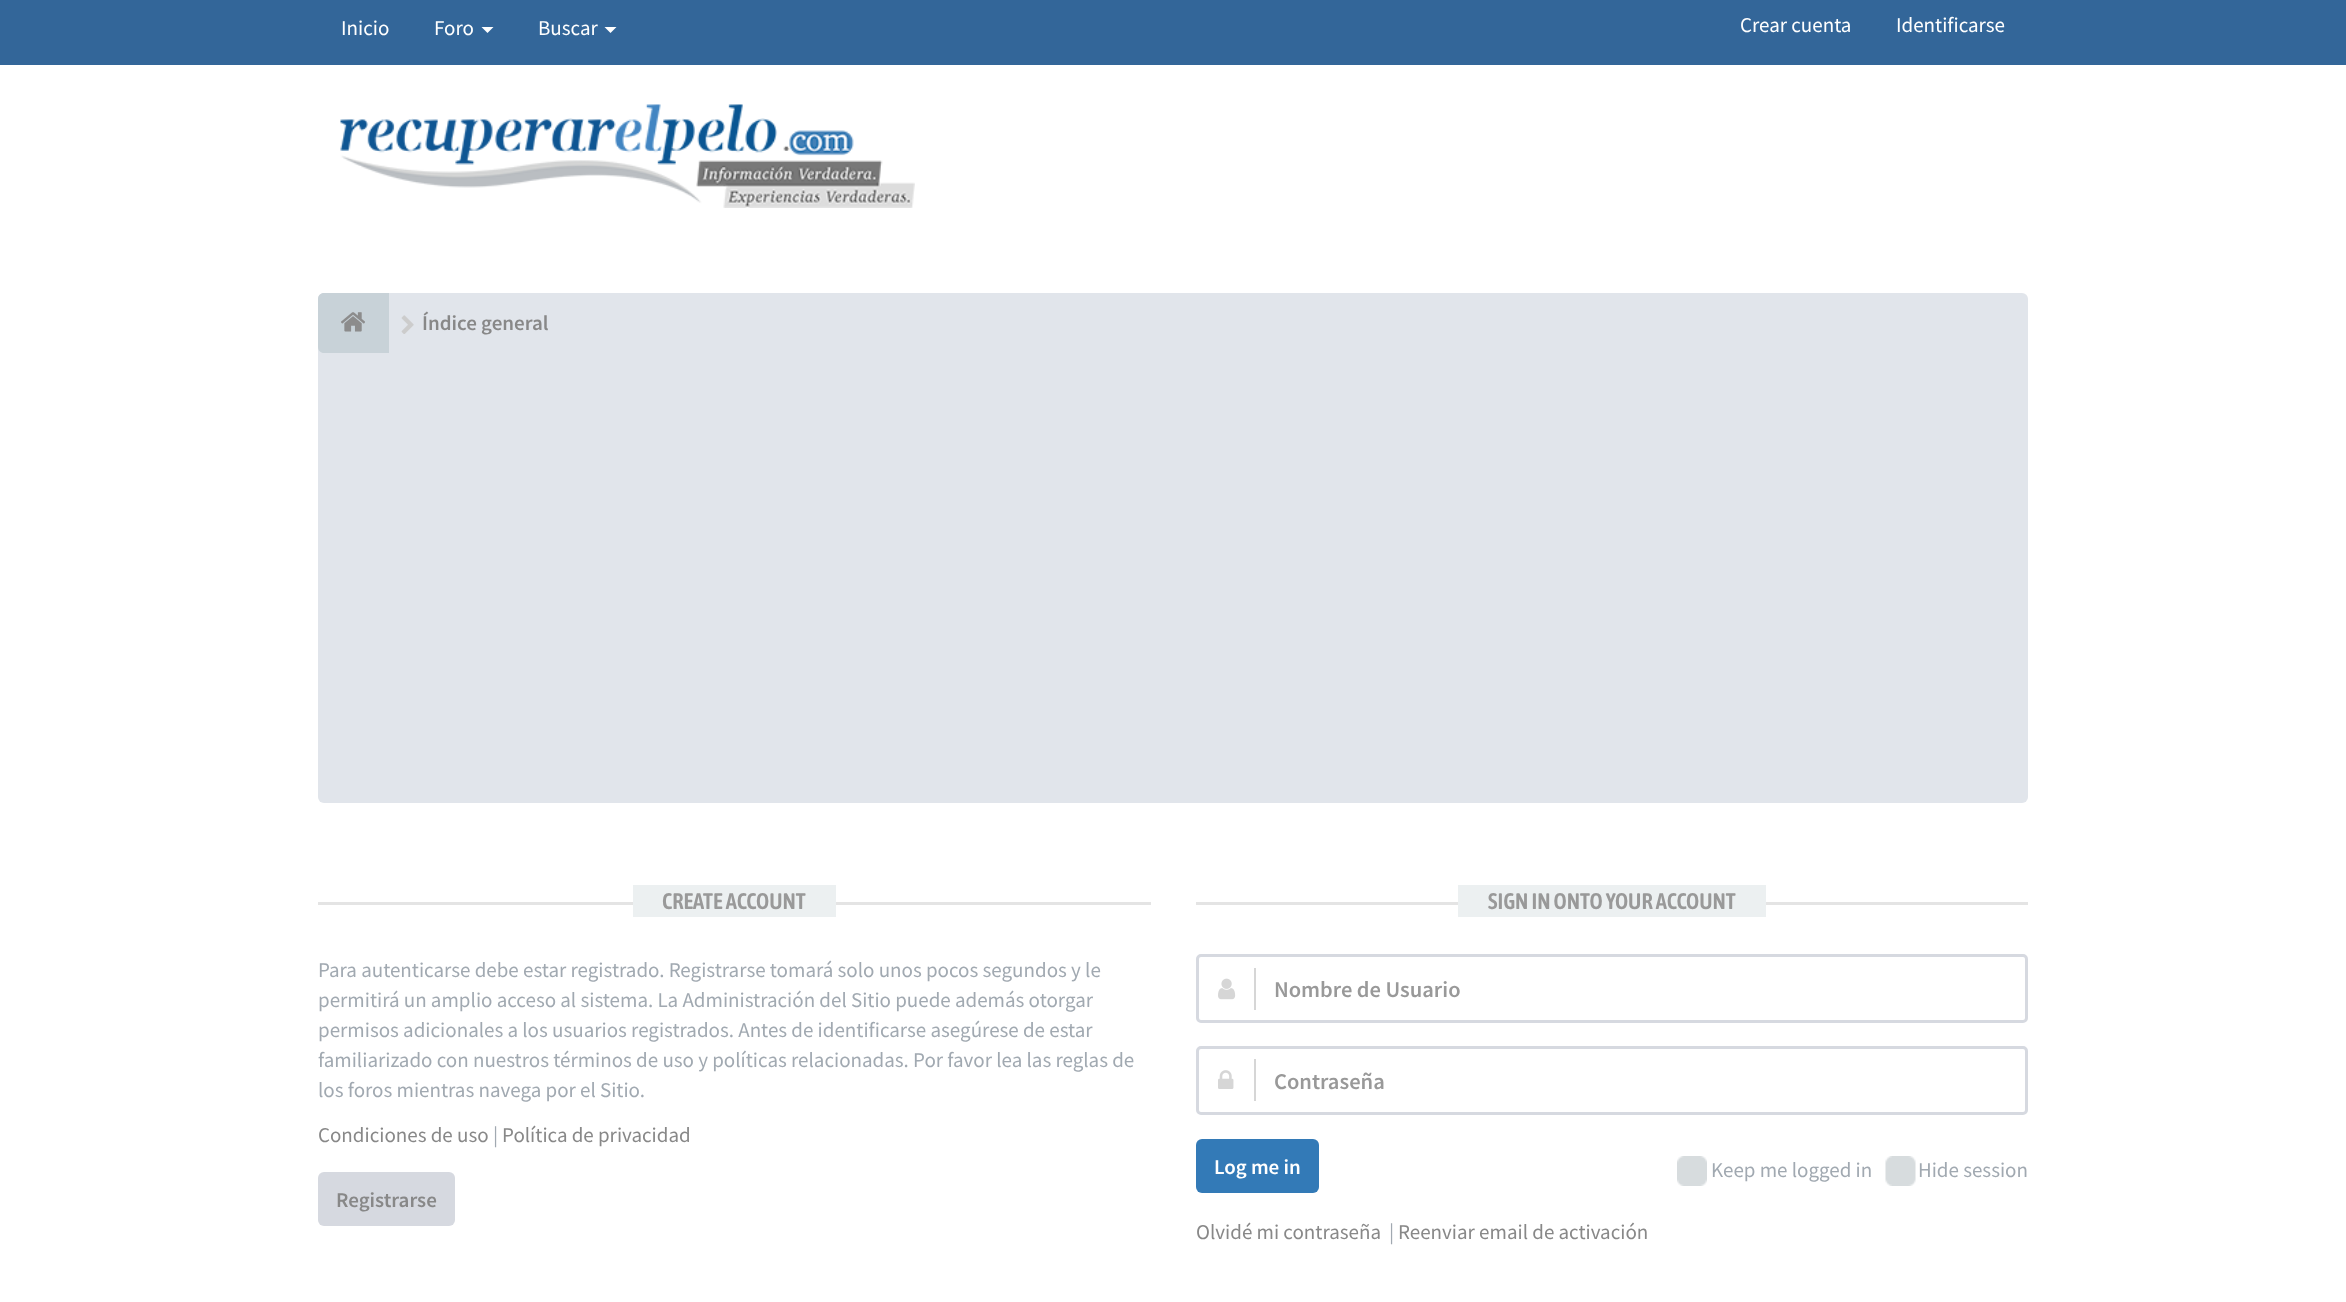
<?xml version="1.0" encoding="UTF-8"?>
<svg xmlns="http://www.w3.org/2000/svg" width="2346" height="1302">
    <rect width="100%" height="100%" fill="#FFFFFF"/>
    <rect x="0" y="0" width="2346" height="65" fill="#336699"/>
    <text x="341" y="35" font-family="Source Sans Pro" font-size="21" fill="#FFFFFF">Inicio</text>
    <text x="434" y="35" font-family="Source Sans Pro" font-size="21" fill="#FFFFFF">Foro</text>
    <path d="M 481.5 27 H 493.5 L 487.5 33 Z" fill="#FFFFFF"/>
    <text x="538" y="35" font-family="Source Sans Pro" font-size="21" fill="#FFFFFF">Buscar</text>
    <path d="M 604.5 27 H 616.5 L 610.5 33 Z" fill="#FFFFFF"/>
    <text x="1740" y="32" font-family="Source Sans Pro" font-size="21" fill="#FFFFFF">Crear cuenta</text>
    <text x="1896" y="32" font-family="Source Sans Pro" font-size="21" fill="#FFFFFF">Identificarse</text>
    <image x="340" y="104" width="575" height="104" href="img_01.png"/>
    <rect x="318" y="293" width="1710" height="510" rx="6" fill="#E1E5EB"/>
    <path d="M 324 293 H 389 V 353 H 324 C 320.5 353 318 350.5 318 347 V 299 C 318 295.5 320.5 293 324 293 Z" fill="#C8D2D8"/>
    <image x="341" y="312" width="24" height="20" href="img_02.png"/>
    <image x="401" y="315" width="13" height="19" href="img_03.png"/>
    <text x="422" y="330" font-family="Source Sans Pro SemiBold" font-size="21" font-weight="600" fill="#888888">Índice general</text>
    <rect x="318" y="902" width="833" height="3" fill="#E4E4E4"/>
    <rect x="633" y="885" width="203" height="32" fill="#ECF0F1"/>
    <text x="662" y="909" font-family="Asap Condensed" font-size="22.5" font-weight="600" fill="#999999">CREATE ACCOUNT</text>
    <text font-family="Source Sans Pro" font-size="21" fill="#A1A9B1">
        <tspan x="318" y="977">Para autenticarse debe estar registrado. Registrarse tomará solo unos pocos segundos y le</tspan>
        <tspan x="318" y="1007">permitirá un amplio acceso al sistema. La Administración del Sitio puede además otorgar</tspan>
        <tspan x="318" y="1037">permisos adicionales a los usuarios registrados. Antes de identificarse asegúrese de estar</tspan>
        <tspan x="318" y="1067">familiarizado con nuestros términos de uso y políticas relacionadas. Por favor lea las reglas de</tspan>
        <tspan x="318" y="1097">los foros mientras navega por el Sitio.</tspan>
    </text>
    <text x="318" y="1142" font-family="Source Sans Pro" font-size="21" fill="#888888">Condiciones de uso</text>
    <text x="493" y="1142" font-family="Source Sans Pro" font-size="21" fill="#A1A9B1">|</text>
    <text x="502" y="1142" font-family="Source Sans Pro" font-size="21" fill="#888888">Política de privacidad</text>
    <rect x="318" y="1172" width="137" height="54" rx="6" fill="#D6D9E0"/>
    <text x="336" y="1207" font-family="Source Sans Pro SemiBold" font-size="21" font-weight="600" fill="#888888">Registrarse</text>
    <rect x="1196" y="902" width="832" height="3" fill="#E4E4E4"/>
    <rect x="1458" y="885" width="308" height="32" fill="#ECF0F1"/>
    <text x="1488" y="909" font-family="Asap Condensed" font-size="22.5" font-weight="600" fill="#999999">SIGN IN ONTO YOUR ACCOUNT</text>
    <rect x="1197.5" y="955.5" width="829" height="66" rx="3.5" fill="none" stroke="#D6D9E0" stroke-width="3"/>
    <rect x="1254" y="968" width="2" height="42" fill="#D6D6D6"/>
    <image x="1218" y="978" width="18" height="22" href="img_04.png"/>
    <text x="1274" y="997" font-family="Source Sans Pro SemiBold" font-size="22.5" font-weight="600" fill="#999999">Nombre de Usuario</text>
    <rect x="1197.5" y="1047.5" width="829" height="66" rx="3.5" fill="none" stroke="#D6D9E0" stroke-width="3"/>
    <rect x="1254" y="1059" width="2" height="42" fill="#D6D6D6"/>
    <image x="1218" y="1070" width="16" height="19" href="img_05.png"/>
    <text x="1274" y="1089" font-family="Source Sans Pro SemiBold" font-size="22.5" font-weight="600" fill="#999999">Contraseña</text>
    <rect x="1196" y="1139" width="123" height="54" rx="6" fill="#337AB7"/>
    <text x="1214" y="1174" font-family="Source Sans Pro SemiBold" font-size="21" font-weight="600" fill="#FFFFFF">Log me in</text>
    <image x="1677" y="1156" width="30" height="30" href="img_06.png"/>
    <text x="1711" y="1177" font-family="Source Sans Pro" font-size="21" fill="#A1A9B1">Keep me logged in</text>
    <image x="1885" y="1156" width="31" height="30" href="img_07.png"/>
    <text x="1918" y="1177" font-family="Source Sans Pro" font-size="21" fill="#A1A9B1">Hide session</text>
    <text x="1196" y="1239" font-family="Source Sans Pro" font-size="21" fill="#888888">Olvidé mi contraseña</text>
    <text x="1389" y="1239" font-family="Source Sans Pro" font-size="21" fill="#A1A9B1">|</text>
    <text x="1398" y="1239" font-family="Source Sans Pro" font-size="21" fill="#888888">Reenviar email de activación</text>
</svg>
